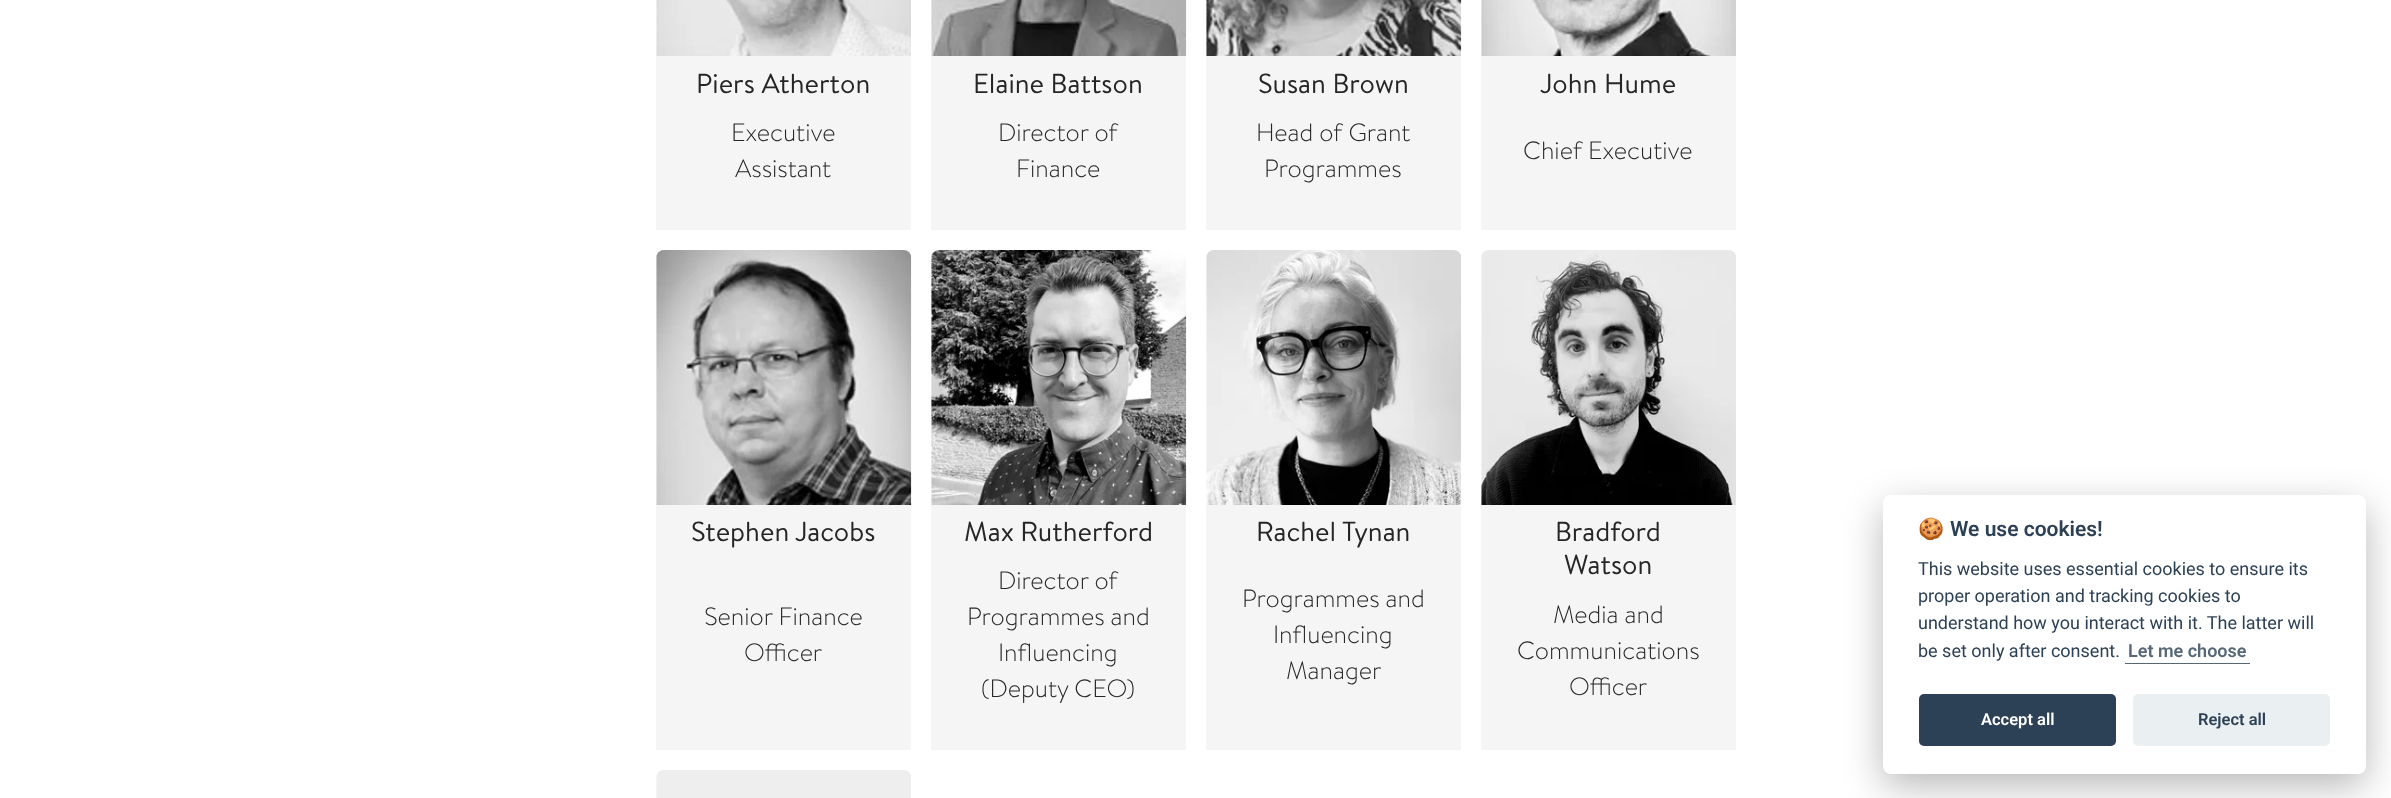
<?xml version="1.0" encoding="UTF-8"?>
<svg xmlns="http://www.w3.org/2000/svg" width="2391" height="798">
    <defs>
        <filter id="blur1" x="-50%" y="-200%" width="200%" height="500%"><feGaussianBlur stdDeviation="19"/></filter>
    </defs>
    <rect width="100%" height="100%" fill="#FFFFFF"/>
    <image x="656" y="0" width="255" height="56" href="img_01.png"/>
    <rect x="656" y="56" width="255" height="174" fill="#F5F5F5"/>
    <text x="696" y="93" font-family="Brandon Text" font-size="27.5" fill="#262626">Piers Atherton</text>
    <text x="731" y="141" font-family="'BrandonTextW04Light'" font-size="25" font-weight="300" fill="#262626">Executive</text>
    <text x="735" y="177" font-family="'BrandonTextW04Light'" font-size="25" font-weight="300" fill="#262626">Assistant</text>
    <image x="931" y="0" width="256" height="56" href="img_02.png"/>
    <rect x="931" y="56" width="255" height="174" fill="#F5F5F5"/>
    <text x="973" y="93" font-family="Brandon Text" font-size="27.5" fill="#262626">Elaine Battson</text>
    <text x="998" y="141" font-family="'BrandonTextW04Light'" font-size="25" font-weight="300" fill="#262626">Director of</text>
    <text x="1016" y="177" font-family="'BrandonTextW04Light'" font-size="25" font-weight="300" fill="#262626">Finance</text>
    <image x="1206" y="0" width="256" height="56" href="img_03.png"/>
    <rect x="1206" y="56" width="255" height="174" fill="#F5F5F5"/>
    <text x="1258" y="93" font-family="Brandon Text" font-size="27.5" fill="#262626">Susan Brown</text>
    <text x="1256" y="141" font-family="'BrandonTextW04Light'" font-size="25" font-weight="300" fill="#262626">Head of Grant</text>
    <text x="1264" y="177" font-family="'BrandonTextW04Light'" font-size="25" font-weight="300" fill="#262626">Programmes</text>
    <image x="1481" y="0" width="255" height="56" href="img_04.png"/>
    <rect x="1481" y="56" width="255" height="174" fill="#F5F5F5"/>
    <text x="1540" y="93" font-family="Brandon Text" font-size="27.5" fill="#262626">John Hume</text>
    <text x="1523" y="159" font-family="'BrandonTextW04Light'" font-size="25" font-weight="300" fill="#262626">Chief Executive</text>
    <image x="656" y="250" width="256" height="255" href="img_05.png"/>
    <rect x="656" y="505" width="255" height="245" fill="#F5F5F5"/>
    <text x="691" y="541" font-family="Brandon Text" font-size="27.5" fill="#262626">Stephen Jacobs</text>
    <text x="704" y="625" font-family="'BrandonTextW04Light'" font-size="25" font-weight="300" fill="#262626">Senior Finance</text>
    <text x="744" y="661" font-family="'BrandonTextW04Light'" font-size="25" font-weight="300" fill="#262626">Officer</text>
    <image x="931" y="250" width="256" height="255" href="img_06.png"/>
    <rect x="931" y="505" width="255" height="245" fill="#F5F5F5"/>
    <text x="964" y="541" font-family="Brandon Text" font-size="27.5" fill="#262626">Max Rutherford</text>
    <text x="998" y="589" font-family="'BrandonTextW04Light'" font-size="25" font-weight="300" fill="#262626">Director of</text>
    <text x="967" y="625" font-family="'BrandonTextW04Light'" font-size="25" font-weight="300" fill="#262626">Programmes and</text>
    <text x="998" y="661" font-family="'BrandonTextW04Light'" font-size="25" font-weight="300" fill="#262626">Influencing</text>
    <text x="981" y="697" font-family="'BrandonTextW04Light'" font-size="25" font-weight="300" fill="#262626">(Deputy CEO)</text>
    <image x="1206" y="250" width="255" height="255" href="img_07.png"/>
    <rect x="1206" y="505" width="255" height="245" fill="#F5F5F5"/>
    <text x="1256" y="541" font-family="Brandon Text" font-size="27.5" fill="#262626">Rachel Tynan</text>
    <text x="1242" y="607" font-family="'BrandonTextW04Light'" font-size="25" font-weight="300" fill="#262626">Programmes and</text>
    <text x="1273" y="643" font-family="'BrandonTextW04Light'" font-size="25" font-weight="300" fill="#262626">Influencing</text>
    <text x="1286" y="679" font-family="'BrandonTextW04Light'" font-size="25" font-weight="300" fill="#262626">Manager</text>
    <image x="1481" y="250" width="255" height="255" href="img_08.png"/>
    <rect x="1481" y="505" width="255" height="245" fill="#F5F5F5"/>
    <text x="1555" y="541" font-family="Brandon Text" font-size="27.5" fill="#262626">Bradford</text>
    <text x="1564" y="574" font-family="Brandon Text" font-size="27.5" fill="#262626">Watson</text>
    <text x="1553" y="623" font-family="'BrandonTextW04Light'" font-size="25" font-weight="300" fill="#262626">Media and</text>
    <text x="1517" y="659" font-family="'BrandonTextW04Light'" font-size="25" font-weight="300" fill="#262626">Communications</text>
    <text x="1569" y="695" font-family="'BrandonTextW04Light'" font-size="25" font-weight="300" fill="#262626">Officer</text>
    <image x="656" y="770" width="255" height="28" href="img_09.png"/>
    <rect x="1883" y="508" width="483" height="278" rx="8" fill="#020203" fill-opacity="0.28" filter="url(#blur1)"/>
    <rect x="1883" y="495" width="483" height="279" rx="8" fill="#FFFFFF"/>
    <text x="1918" y="536" font-family="Noto Color Emoji" font-size="21" font-weight="700" fill="#2D4156">🍪</text>
    <text x="1950" y="536" font-family="Roboto" font-size="21" font-weight="600" fill="#2D4156">We use cookies!</text>
    <text font-family="Roboto" font-size="18" fill="#2D4156">
        <tspan x="1918" y="575">This website uses essential cookies to ensure its</tspan>
        <tspan x="1918" y="602">proper operation and tracking cookies to</tspan>
        <tspan x="1918" y="629">understand how you interact with it. The latter will</tspan>
        <tspan x="1918" y="657">be set only after consent.</tspan>
    </text>
    <text x="2128" y="657" font-family="Roboto" font-size="18" font-weight="600" fill="#576778">Let me choose</text>
    <rect x="2125" y="663" width="125" height="1" fill="#576778"/>
    <rect x="1919" y="694" width="197" height="52" rx="5" fill="#2D4156"/>
    <text x="1981" y="725" font-family="Roboto" font-size="16.5" font-weight="600" fill="#FFFFFF">Accept all</text>
    <rect x="2133" y="694" width="197" height="52" rx="5" fill="#EAEFF2"/>
    <text x="2198" y="725" font-family="Roboto" font-size="16.5" font-weight="600" fill="#2D4156">Reject all</text>
</svg>
